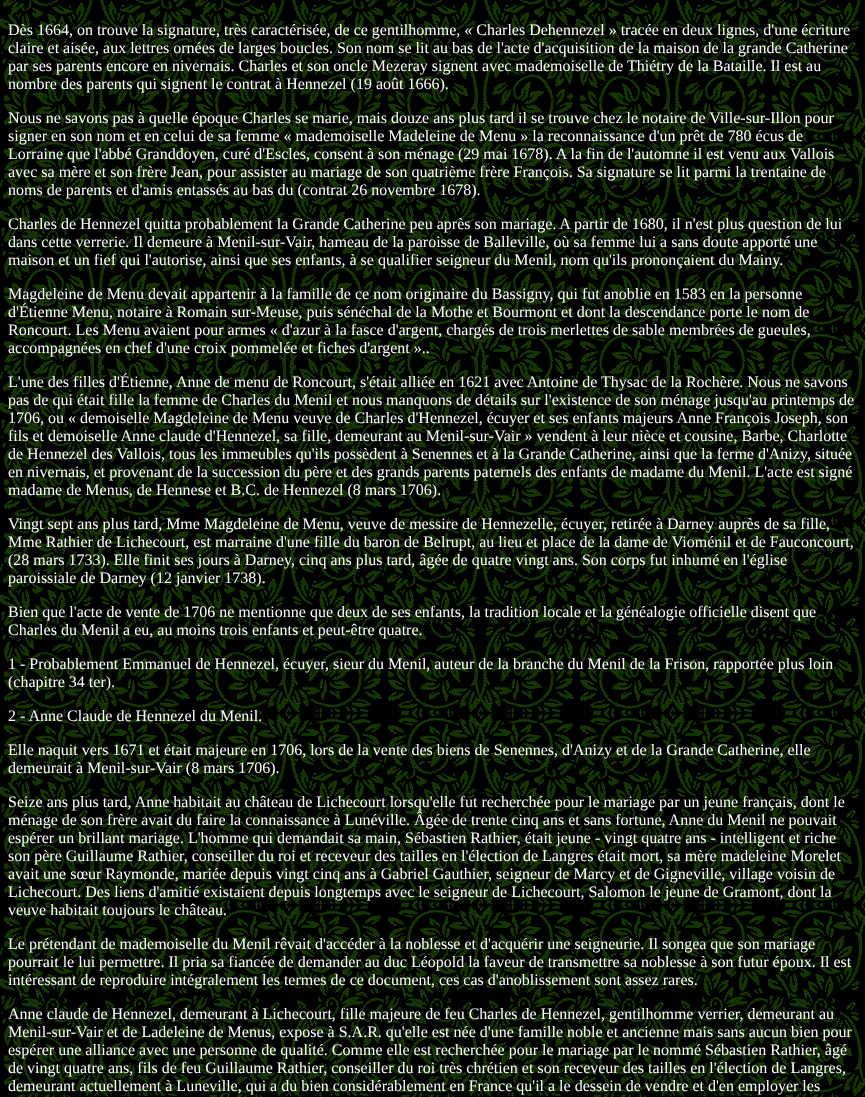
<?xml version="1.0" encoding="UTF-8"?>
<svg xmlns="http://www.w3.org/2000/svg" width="865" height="1097">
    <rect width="100%" height="100%" fill="#FFFFFF"/>
    <image x="0" y="0" width="865" height="1097" href="img_01.png"/>
    <text font-family="Liberation Serif" font-size="16" fill="#FFFFFF">
        <tspan x="8" y="35">Dès 1664, on trouve la signature, très caractérisée, de ce gentilhomme, « Charles Dehennezel » tracée en deux lignes, d'une écriture</tspan>
        <tspan x="8" y="53">claire et aisée, aux lettres ornées de larges boucles. Son nom se lit au bas de l'acte d'acquisition de la maison de la grande Catherine</tspan>
        <tspan x="8" y="71">par ses parents encore en nivernais. Charles et son oncle Mezeray signent avec mademoiselle de Thiétry de la Bataille. Il est au</tspan>
        <tspan x="8" y="89">nombre des parents qui signent le contrat à Hennezel (19 août 1666).</tspan>
    </text>
    <text font-family="Liberation Serif" font-size="16" fill="#FFFFFF">
        <tspan x="8" y="123">Nous ne savons pas à quelle époque Charles se marie, mais douze ans plus tard il se trouve chez le notaire de Ville-sur-Illon pour</tspan>
        <tspan x="8" y="141">signer en son nom et en celui de sa femme « mademoiselle Madeleine de Menu » la reconnaissance d'un prêt de 780 écus de</tspan>
        <tspan x="8" y="159">Lorraine que l'abbé Granddoyen, curé d'Escles, consent à son ménage (29 mai 1678). A la fin de l'automne il est venu aux Vallois</tspan>
        <tspan x="8" y="177">avec sa mère et son frère Jean, pour assister au mariage de son quatrième frère François. Sa signature se lit parmi la trentaine de</tspan>
        <tspan x="8" y="195">noms de parents et d'amis entassés au bas du (contrat 26 novembre 1678).</tspan>
    </text>
    <text font-family="Liberation Serif" font-size="16" fill="#FFFFFF">
        <tspan x="8" y="229">Charles de Hennezel quitta probablement la Grande Catherine peu après son mariage. A partir de 1680, il n'est plus question de lui</tspan>
        <tspan x="8" y="247">dans cette verrerie. Il demeure à Menil-sur-Vair, hameau de la paroisse de Balleville, où sa femme lui a sans doute apporté une</tspan>
        <tspan x="8" y="265">maison et un fief qui l'autorise, ainsi que ses enfants, à se qualifier seigneur du Menil, nom qu'ils prononçaient du Mainy.</tspan>
    </text>
    <text font-family="Liberation Serif" font-size="16" fill="#FFFFFF">
        <tspan x="8" y="299">Magdeleine de Menu devait appartenir à la famille de ce nom originaire du Bassigny, qui fut anoblie en 1583 en la personne</tspan>
        <tspan x="8" y="317">d'Étienne Menu, notaire à Romain sur-Meuse, puis sénéchal de la Mothe et Bourmont et dont la descendance porte le nom de</tspan>
        <tspan x="8" y="335">Roncourt. Les Menu avaient pour armes « d'azur à la fasce d'argent, chargés de trois merlettes de sable membrées de gueules,</tspan>
        <tspan x="8" y="353">accompagnées en chef d'une croix pommelée et fiches d'argent »..</tspan>
    </text>
    <text font-family="Liberation Serif" font-size="16" fill="#FFFFFF">
        <tspan x="8" y="387">L'une des filles d'Étienne, Anne de menu de Roncourt, s'était alliée en 1621 avec Antoine de Thysac de la Rochère. Nous ne savons</tspan>
        <tspan x="8" y="405">pas de qui était fille la femme de Charles du Menil et nous manquons de détails sur l'existence de son ménage jusqu'au printemps de</tspan>
        <tspan x="8" y="423">1706, ou « demoiselle Magdeleine de Menu veuve de Charles d'Hennezel, écuyer et ses enfants majeurs Anne François Joseph, son</tspan>
        <tspan x="8" y="441">fils et demoiselle Anne claude d'Hennezel, sa fille, demeurant au Menil-sur-Vair » vendent à leur nièce et cousine, Barbe, Charlotte</tspan>
        <tspan x="8" y="459">de Hennezel des Vallois, tous les immeubles qu'ils possèdent à Senennes et à la Grande Catherine, ainsi que la ferme d'Anizy, située</tspan>
        <tspan x="8" y="477">en nivernais, et provenant de la succession du père et des grands parents paternels des enfants de madame du Menil. L'acte est signé</tspan>
        <tspan x="8" y="495">madame de Menus, de Hennese et B.C. de Hennezel (8 mars 1706).</tspan>
    </text>
    <text font-family="Liberation Serif" font-size="16" fill="#FFFFFF">
        <tspan x="8" y="529">Vingt sept ans plus tard, Mme Magdeleine de Menu, veuve de messire de Hennezelle, écuyer, retirée à Darney auprès de sa fille,</tspan>
        <tspan x="8" y="547">Mme Rathier de Lichecourt, est marraine d'une fille du baron de Belrupt, au lieu et place de la dame de Vioménil et de Fauconcourt,</tspan>
        <tspan x="8" y="565">(28 mars 1733). Elle finit ses jours à Darney, cinq ans plus tard, âgée de quatre vingt ans. Son corps fut inhumé en l'église</tspan>
        <tspan x="8" y="583">paroissiale de Darney (12 janvier 1738).</tspan>
    </text>
    <text font-family="Liberation Serif" font-size="16" fill="#FFFFFF">
        <tspan x="8" y="617">Bien que l'acte de vente de 1706 ne mentionne que deux de ses enfants, la tradition locale et la généalogie officielle disent que</tspan>
        <tspan x="8" y="635">Charles du Menil a eu, au moins trois enfants et peut-être quatre.</tspan>
    </text>
    <text font-family="Liberation Serif" font-size="16" fill="#FFFFFF">
        <tspan x="8" y="669">1 - Probablement Emmanuel de Hennezel, écuyer, sieur du Menil, auteur de la branche du Menil de la Frison, rapportée plus loin</tspan>
        <tspan x="8" y="687">(chapitre 34 ter).</tspan>
    </text>
    <text x="8" y="721" font-family="Liberation Serif" font-size="16" fill="#FFFFFF">2 - Anne Claude de Hennezel du Menil.</text>
    <text font-family="Liberation Serif" font-size="16" fill="#FFFFFF">
        <tspan x="8" y="755">Elle naquit vers 1671 et était majeure en 1706, lors de la vente des biens de Senennes, d'Anizy et de la Grande Catherine, elle</tspan>
        <tspan x="8" y="773">demeurait à Menil-sur-Vair (8 mars 1706).</tspan>
    </text>
    <text font-family="Liberation Serif" font-size="16" fill="#FFFFFF">
        <tspan x="8" y="807">Seize ans plus tard, Anne habitait au château de Lichecourt lorsqu'elle fut recherchée pour le mariage par un jeune français, dont le</tspan>
        <tspan x="8" y="825">ménage de son frère avait du faire la connaissance à Lunéville. Âgée de trente cinq ans et sans fortune, Anne du Menil ne pouvait</tspan>
        <tspan x="8" y="843">espérer un brillant mariage. L'homme qui demandait sa main, Sébastien Rathier, était jeune - vingt quatre ans - intelligent et riche</tspan>
        <tspan x="8" y="861">son père Guillaume Rathier, conseiller du roi et receveur des tailles en l'élection de Langres était mort, sa mère madeleine Morelet</tspan>
        <tspan x="8" y="879">avait une sœur Raymonde, mariée depuis vingt cinq ans à Gabriel Gauthier, seigneur de Marcy et de Gigneville, village voisin de</tspan>
        <tspan x="8" y="897">Lichecourt. Des liens d'amitié existaient depuis longtemps avec le seigneur de Lichecourt, Salomon le jeune de Gramont, dont la</tspan>
        <tspan x="8" y="915">veuve habitait toujours le château.</tspan>
    </text>
    <text font-family="Liberation Serif" font-size="16" fill="#FFFFFF">
        <tspan x="8" y="949">Le prétendant de mademoiselle du Menil rêvait d'accéder à la noblesse et d'acquérir une seigneurie. Il songea que son mariage</tspan>
        <tspan x="8" y="967">pourrait le lui permettre. Il pria sa fiancée de demander au duc Léopold la faveur de transmettre sa noblesse à son futur époux. Il est</tspan>
        <tspan x="8" y="985">intéressant de reproduire intégralement les termes de ce document, ces cas d'anoblissement sont assez rares.</tspan>
    </text>
    <text font-family="Liberation Serif" font-size="16" fill="#FFFFFF">
        <tspan x="8" y="1019">Anne claude de Hennezel, demeurant à Lichecourt, fille majeure de feu Charles de Hennezel, gentilhomme verrier, demeurant au</tspan>
        <tspan x="8" y="1037">Menil-sur-Vair et de Ladeleine de Menus, expose à S.A.R. qu'elle est née d'une famille noble et ancienne mais sans aucun bien pour</tspan>
        <tspan x="8" y="1055">espérer une alliance avec une personne de qualité. Comme elle est recherchée pour le mariage par le nommé Sébastien Rathier, âgé</tspan>
        <tspan x="8" y="1073">de vingt quatre ans, fils de feu Guillaume Rathier, conseiller du roi très chrétien et son receveur des tailles en l'élection de Langres,</tspan>
        <tspan x="8" y="1091">demeurant actuellement à Luneville, qui a du bien considérablement en France qu'il a le dessein de vendre et d'en employer les</tspan>
    </text>
</svg>
